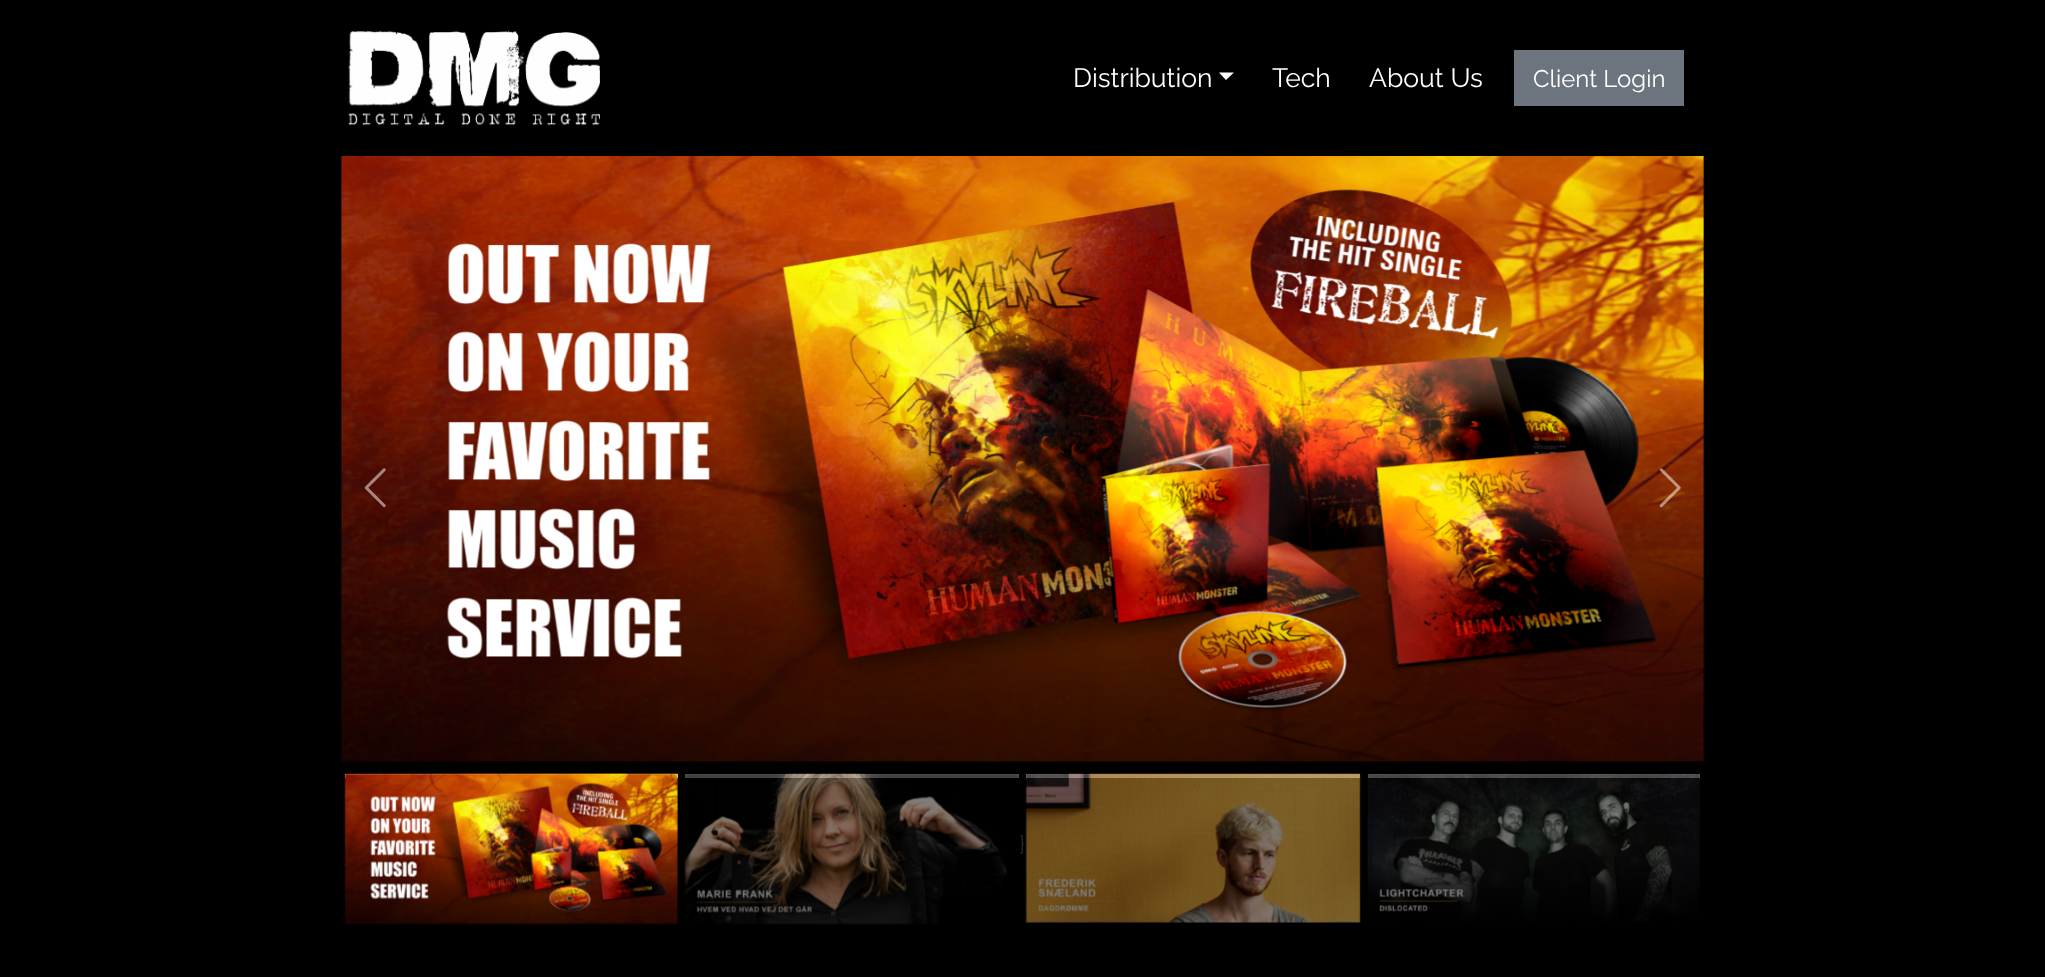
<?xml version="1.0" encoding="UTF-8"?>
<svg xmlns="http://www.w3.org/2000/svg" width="2045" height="977">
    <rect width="100%" height="100%" fill="#000000"/>
    <image x="348" y="31" width="252" height="95" href="img_01.png"/>
    <text x="1073" y="87" font-family="Raleway" font-size="26.5" font-weight="100" fill="#FFFFFF">Distribution</text>
    <path d="M 1219 72.5 H 1234 L 1226 80 Z" fill="#FFFFFF"/>
    <text x="1272" y="87" font-family="Raleway" font-size="26.5" font-weight="100" fill="#FFFFFF">Tech</text>
    <text x="1369" y="87" font-family="Raleway" font-size="26.5" font-weight="100" fill="#FFFFFF">About Us</text>
    <rect x="1514" y="50" width="170" height="56" fill="#6C757D"/>
    <text x="1533" y="87" font-family="Raleway" font-size="24" font-weight="100" fill="#FFFFFF">Client Login</text>
    <image x="341" y="156" width="1363" height="606" href="img_02.png"/>
    <image x="364" y="468" width="22" height="40" href="img_03.png"/>
    <image x="1659" y="468" width="22" height="40" href="img_04.png"/>
    <rect x="345" y="774" width="333" height="4" fill="#FFFFFF"/>
    <image x="344" y="773" width="334" height="152" href="img_05.png"/>
    <rect x="685" y="774" width="334" height="4" fill="#808080"/>
    <image x="684" y="773" width="335" height="152" href="img_06.png"/>
    <rect x="1026" y="774" width="334" height="4" fill="#808080"/>
    <image x="1025" y="773" width="336" height="150" href="img_07.png"/>
    <rect x="1368" y="774" width="332" height="4" fill="#808080"/>
    <image x="1367" y="773" width="333" height="149" href="img_08.png"/>
    <text x="1019" y="853" font-family="Raleway" font-size="24" font-weight="100" fill="#212529">}</text>
</svg>
